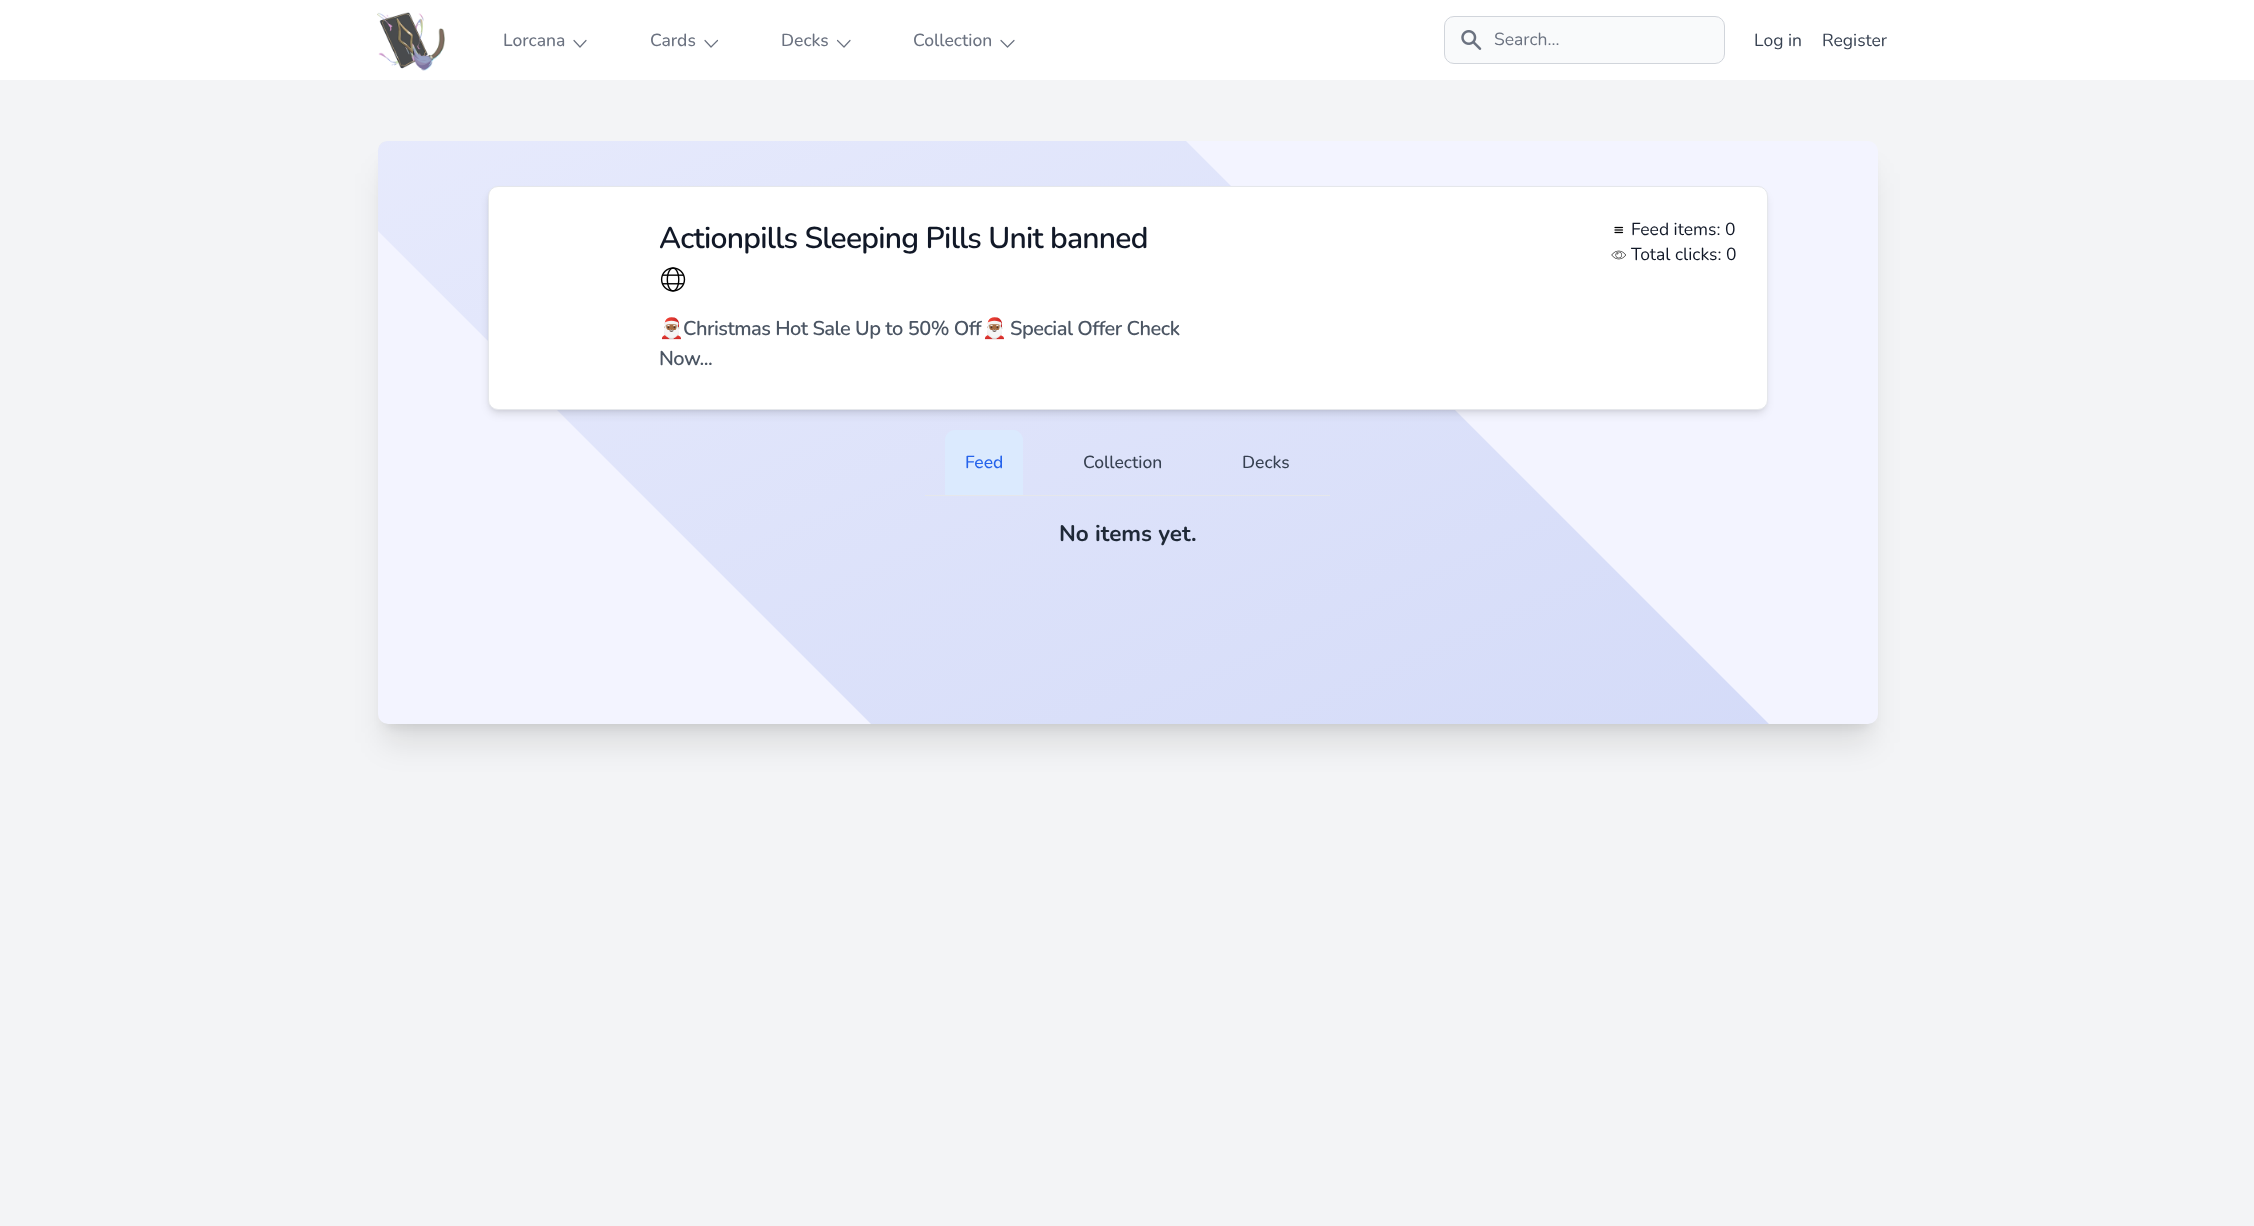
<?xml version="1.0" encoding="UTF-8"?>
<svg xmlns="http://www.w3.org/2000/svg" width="2254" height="1226">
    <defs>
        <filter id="blur1" x="-50%" y="-200%" width="200%" height="500%"><feGaussianBlur stdDeviation="6"/></filter>
        <filter id="blur2" x="-50%" y="-200%" width="200%" height="500%"><feGaussianBlur stdDeviation="15.5"/></filter>
        <linearGradient id="g1" gradientUnits="userSpaceOnUse" x1="1713" y1="1044" x2="831" y2="-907"><stop offset="0" stop-color="#3056D3" stop-opacity="0.18"/><stop offset="1" stop-color="#3056D3" stop-opacity="0"/><stop offset="1" stop-color="#F5F2FD" stop-opacity="0"/><stop offset="1" stop-color="#F5F2FD" stop-opacity="0.05"/></linearGradient>
        <filter id="blur3" x="-50%" y="-200%" width="200%" height="500%"><feGaussianBlur stdDeviation="2.5"/></filter>
        <filter id="blur4" x="-50%" y="-200%" width="200%" height="500%"><feGaussianBlur stdDeviation="4"/></filter>
    </defs>
    <rect width="100%" height="100%" fill="#F3F4F6"/>
    <rect x="0" y="0" width="2254" height="80" fill="#FFFFFF"/>
    <image x="377" y="12" width="68" height="59" href="img_01.png"/>
    <text x="503" y="46" font-family="Nunito" font-size="17.5" font-weight="500" fill="#6B7280">Lorcana</text>
    <path d="M 586 40.5 L 580 47 L 574 40.5" fill="none" stroke="#6B7280" stroke-width="1.2" stroke-linecap="round" stroke-linejoin="round"/>
    <text x="650" y="46" font-family="Nunito" font-size="17.5" font-weight="500" fill="#6B7280">Cards</text>
    <path d="M 717.5 40.5 L 711 47 L 705 40.5" fill="none" stroke="#6B7280" stroke-width="1.2" stroke-linecap="round" stroke-linejoin="round"/>
    <text x="781" y="46" font-family="Nunito" font-size="17.5" font-weight="500" fill="#6B7280">Decks</text>
    <path d="M 850 40.5 L 844 47 L 837.5 40.5" fill="none" stroke="#6B7280" stroke-width="1.2" stroke-linecap="round" stroke-linejoin="round"/>
    <text x="913" y="46" font-family="Nunito" font-size="17.5" font-weight="500" fill="#6B7280">Collection</text>
    <path d="M 1014 40.5 L 1007.5 47 L 1001 40.5" fill="none" stroke="#6B7280" stroke-width="1.2" stroke-linecap="round" stroke-linejoin="round"/>
    <rect x="1444.5" y="16.5" width="280" height="47" rx="9.5" fill="#F9FAFB" stroke="#D1D5DB"/>
    <image x="1461" y="30" width="21" height="20" href="img_02.png"/>
    <text x="1494" y="45" font-family="Nunito" font-size="17.5" fill="#6B7280">Search...</text>
    <text x="1754" y="46" font-family="Nunito" font-size="17.5" fill="#374151">Log in</text>
    <text x="1822" y="46" font-family="Nunito" font-size="17.5" fill="#374151">Register</text>
    <rect x="385" y="159" width="1485" height="567" rx="2.5" fill="#000000" fill-opacity="0.1" filter="url(#blur1)"/>
    <rect x="384" y="173" width="1487" height="570" rx="4" fill="#000000" fill-opacity="0.1" filter="url(#blur2)"/>
    <rect x="378" y="141" width="1500" height="583" rx="10" fill="#F3F4FF"/>
    <path d="M 388 141 H 1186 L 1769 724 H 871 L 378 231 V 151 C 378 145 382 141 388 141 Z" fill="url(#g1)"/>
    <rect x="490" y="191" width="1275" height="219" rx="8" fill="#000000" fill-opacity="0.1" filter="url(#blur3)"/>
    <rect x="489" y="193" width="1277" height="221" rx="9" fill="#000000" fill-opacity="0.1" filter="url(#blur4)"/>
    <rect x="488.5" y="186.5" width="1279" height="223" rx="9.5" fill="#FFFFFF" stroke="#E5E7EB"/>
    <text x="659" y="248" font-family="Nunito" font-size="30" font-weight="600" letter-spacing="-0.75" fill="#111827">Actionpills Sleeping Pills Unit banned</text>
    <image x="660" y="267" width="26" height="25" href="img_03.png"/>
    <text x="659" y="335" font-family="Noto Color Emoji" font-size="20" letter-spacing="-0.5" fill="#4B5563">🎅🏾</text>
    <text x="683" y="335" font-family="Nunito" font-size="20" font-weight="600" letter-spacing="-0.5" fill="#4B5563">Christmas Hot Sale Up to 50% Off</text>
    <text x="982" y="335" font-family="Noto Color Emoji" font-size="20" letter-spacing="-0.5" fill="#4B5563">🎅🏾</text>
    <text x="1010" y="335" font-family="Nunito" font-size="20" font-weight="600" letter-spacing="-0.5" fill="#4B5563">Special Offer Check</text>
    <text x="659" y="365" font-family="Nunito" font-size="20" font-weight="600" letter-spacing="-0.5" fill="#4B5563">Now...</text>
    <image x="1614" y="226" width="10" height="8" href="img_04.png"/>
    <text x="1631" y="235" font-family="Nunito" font-size="17.5" fill="#111827">Feed items: 0</text>
    <image x="1611" y="250" width="15" height="10" href="img_05.png"/>
    <text x="1631" y="260" font-family="Nunito" font-size="17.5" fill="#111827">Total clicks: 0</text>
    <rect x="925" y="495" width="405" height="1" fill="#E5E7EB"/>
    <path d="M 955 430 H 1013 C 1018.5 430 1023 434.5 1023 440 V 495 H 945 V 440 C 945 434.5 949.5 430 955 430 Z" fill="#DBEAFE"/>
    <text x="965" y="468" font-family="Nunito" font-size="17.5" font-weight="500" fill="#2563EB">Feed</text>
    <text x="1083" y="468" font-family="Nunito" font-size="17.5" font-weight="500" fill="#374151">Collection</text>
    <text x="1242" y="468" font-family="Nunito" font-size="17.5" font-weight="500" fill="#374151">Decks</text>
    <text x="1059" y="541" font-family="Nunito" font-size="22.5" font-weight="700" fill="#1F2937">No items yet.</text>
</svg>
